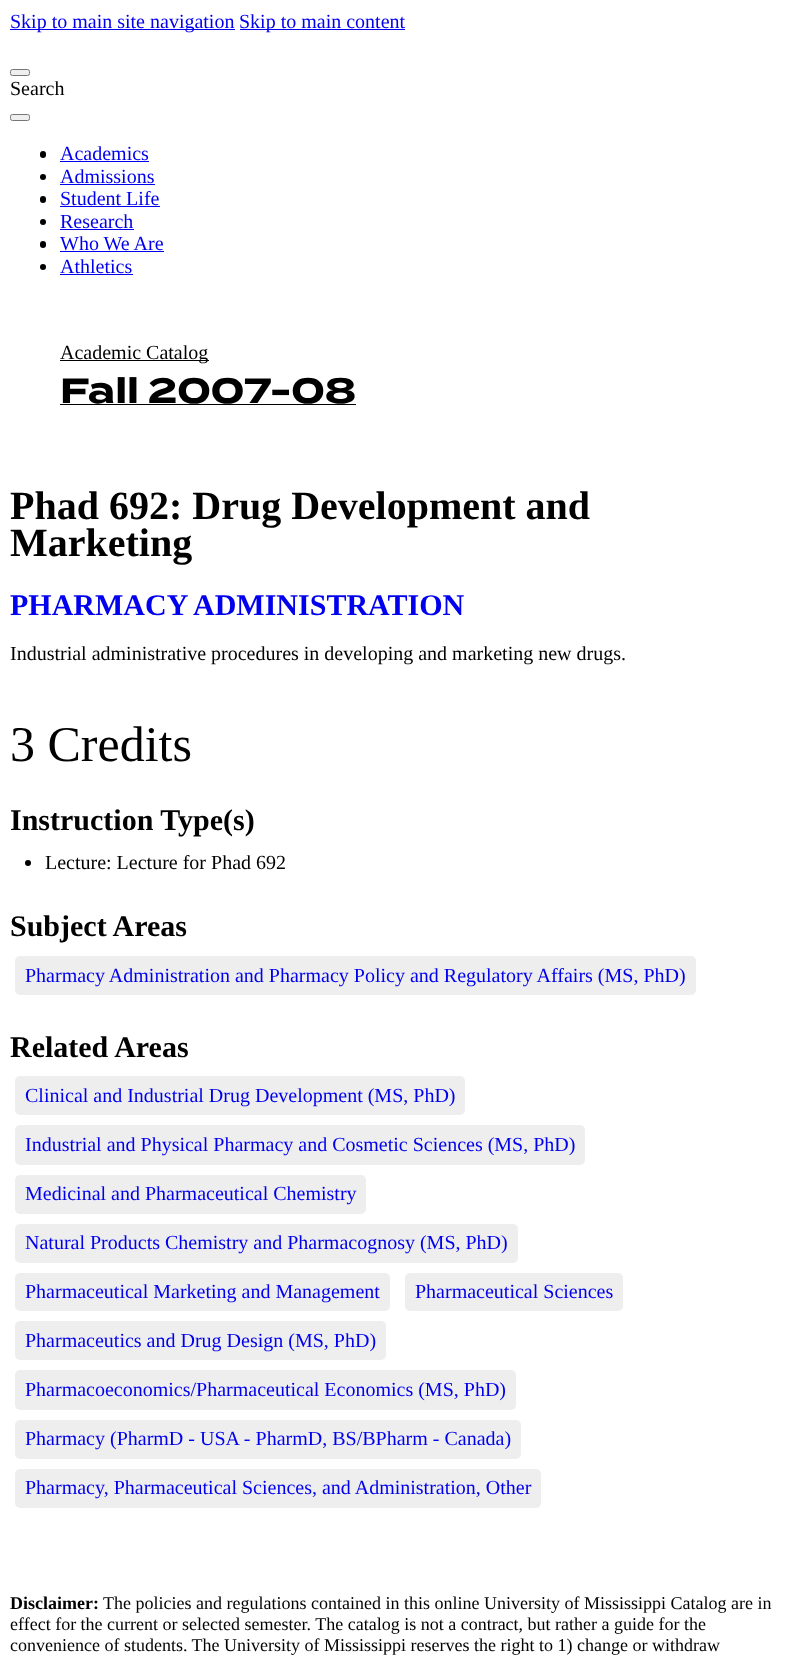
<?xml version="1.0" encoding="UTF-8"?>
<svg xmlns="http://www.w3.org/2000/svg" width="794" height="1659">
    <rect width="100%" height="100%" fill="#FFFFFF"/>
    <rect x="10" y="29" width="225" height="1" fill="#0000EE"/>
    <text x="10" y="28" font-family="Liberation Serif" font-size="20" fill="#0000EE">Skip to main site navigation</text>
    <rect x="240" y="29" width="165" height="1" fill="#0000EE"/>
    <text x="239" y="28" font-family="Liberation Serif" font-size="20" fill="#0000EE">Skip to main content</text>
    <rect x="10.5" y="69.5" width="19" height="6" rx="2" fill="#EFEFEF" stroke="#767676"/>
    <text x="10" y="95" font-family="Liberation Serif" font-size="20" fill="#000000">Search</text>
    <rect x="10.5" y="114.5" width="19" height="6" rx="2" fill="#EFEFEF" stroke="#767676"/>
    <rect x="40" y="151" width="6" height="7" rx="3" fill="#000000"/>
    <text x="60" y="160" font-family="Liberation Serif" font-size="20" fill="#0000EE">Academics</text>
    <rect x="60" y="161" width="89" height="1" fill="#0000EE"/>
    <circle cx="43" cy="177" r="3" fill="#000000"/>
    <text x="60" y="183" font-family="Liberation Serif" font-size="20" fill="#0000EE">Admissions</text>
    <rect x="60" y="184" width="95" height="1" fill="#0000EE"/>
    <rect x="40" y="196" width="6" height="7" rx="3" fill="#000000"/>
    <text x="60" y="205" font-family="Liberation Serif" font-size="20" fill="#0000EE">Student Life</text>
    <rect x="60" y="206" width="100" height="1" fill="#0000EE"/>
    <circle cx="43" cy="222" r="3" fill="#000000"/>
    <text x="60" y="228" font-family="Liberation Serif" font-size="20" fill="#0000EE">Research</text>
    <rect x="60" y="229" width="74" height="1" fill="#0000EE"/>
    <rect x="40" y="241" width="6" height="7" rx="3" fill="#000000"/>
    <text x="60" y="250" font-family="Liberation Serif" font-size="20" fill="#0000EE">Who We Are</text>
    <rect x="60" y="251" width="104" height="1" fill="#0000EE"/>
    <circle cx="43" cy="267" r="3" fill="#000000"/>
    <text x="60" y="273" font-family="Liberation Serif" font-size="20" fill="#0000EE">Athletics</text>
    <rect x="60" y="274" width="73" height="1" fill="#0000EE"/>
    <rect x="60" y="360" width="149" height="1" fill="#000000"/>
    <text x="60" y="359" font-family="Liberation Serif" font-size="20" fill="#000000">Academic Catalog</text>
    <text x="60" y="403" font-family="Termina" font-size="35" font-weight="700" fill="#000000">Fall 2007-08</text>
    <rect x="60" y="404" width="296" height="1" fill="#000000"/>
    <text font-family="Liberation Serif" font-size="40" font-weight="700" fill="#000000">
        <tspan x="10" y="519">Phad 692: Drug Development and</tspan>
        <tspan x="10" y="556">Marketing</tspan>
    </text>
    <text x="10" y="615" font-family="Liberation Serif" font-size="30" font-weight="700" fill="#0000EE">PHARMACY ADMINISTRATION</text>
    <text x="10" y="660" font-family="Liberation Serif" font-size="20" fill="#000000">Industrial administrative procedures in developing and marketing new drugs.</text>
    <text x="10" y="761" font-family="Liberation Serif" font-size="50" fill="#000000">3 Credits</text>
    <text x="10" y="830" font-family="Liberation Serif" font-size="30" font-weight="700" fill="#000000">Instruction Type(s)</text>
    <circle cx="28" cy="863" r="3" fill="#000000"/>
    <text x="45" y="869" font-family="Liberation Serif" font-size="20" fill="#000000">Lecture: Lecture for Phad 692</text>
    <text x="10" y="936" font-family="Liberation Serif" font-size="30" font-weight="700" fill="#000000">Subject Areas</text>
    <rect x="15" y="956" width="681" height="39" rx="5" fill="#EEEEEE"/>
    <text x="25" y="982" font-family="Liberation Serif" font-size="20" fill="#0000EE">Pharmacy Administration and Pharmacy Policy and Regulatory Affairs (MS, PhD)</text>
    <text x="10" y="1057" font-family="Liberation Serif" font-size="30" font-weight="700" fill="#000000">Related Areas</text>
    <rect x="15" y="1076" width="450" height="39" rx="5" fill="#EEEEEE"/>
    <text x="25" y="1102" font-family="Liberation Serif" font-size="20" fill="#0000EE">Clinical and Industrial Drug Development (MS, PhD)</text>
    <rect x="15" y="1125" width="570" height="40" rx="5" fill="#EEEEEE"/>
    <text x="25" y="1151" font-family="Liberation Serif" font-size="20" fill="#0000EE">Industrial and Physical Pharmacy and Cosmetic Sciences (MS, PhD)</text>
    <rect x="15" y="1175" width="351" height="39" rx="5" fill="#EEEEEE"/>
    <text x="25" y="1200" font-family="Liberation Serif" font-size="20" fill="#0000EE">Medicinal and Pharmaceutical Chemistry</text>
    <rect x="15" y="1224" width="503" height="39" rx="5" fill="#EEEEEE"/>
    <text x="25" y="1249" font-family="Liberation Serif" font-size="20" fill="#0000EE">Natural Products Chemistry and Pharmacognosy (MS, PhD)</text>
    <rect x="15" y="1273" width="375" height="38" rx="5" fill="#EEEEEE"/>
    <text x="25" y="1298" font-family="Liberation Serif" font-size="20" fill="#0000EE">Pharmaceutical Marketing and Management</text>
    <rect x="405" y="1273" width="218" height="38" rx="5" fill="#EEEEEE"/>
    <text x="415" y="1298" font-family="Liberation Serif" font-size="20" fill="#0000EE">Pharmaceutical Sciences</text>
    <rect x="15" y="1321" width="371" height="39" rx="5" fill="#EEEEEE"/>
    <text x="25" y="1347" font-family="Liberation Serif" font-size="20" fill="#0000EE">Pharmaceutics and Drug Design (MS, PhD)</text>
    <rect x="15" y="1370" width="501" height="40" rx="5" fill="#EEEEEE"/>
    <text x="25" y="1396" font-family="Liberation Serif" font-size="20" fill="#0000EE">Pharmacoeconomics/Pharmaceutical Economics (MS, PhD)</text>
    <rect x="15" y="1420" width="506" height="39" rx="5" fill="#EEEEEE"/>
    <text x="25" y="1445" font-family="Liberation Serif" font-size="20" fill="#0000EE">Pharmacy (PharmD - USA - PharmD, BS/BPharm - Canada)</text>
    <rect x="15" y="1469" width="526" height="39" rx="5" fill="#EEEEEE"/>
    <text x="25" y="1494" font-family="Liberation Serif" font-size="20" fill="#0000EE">Pharmacy, Pharmaceutical Sciences, and Administration, Other</text>
    <text x="10" y="1609" font-family="Liberation Serif" font-size="18" font-weight="700" fill="#000000">Disclaimer:</text>
    <text x="103" y="1609" font-family="Liberation Serif" font-size="18" fill="#000000">The policies and regulations contained in this online University of Mississippi Catalog are in</text>
    <text font-family="Liberation Serif" font-size="18" fill="#000000">
        <tspan x="10" y="1630">effect for the current or selected semester. The catalog is not a contract, but rather a guide for the</tspan>
        <tspan x="10" y="1651">convenience of students. The University of Mississippi reserves the right to 1) change or withdraw</tspan>
    </text>
</svg>
